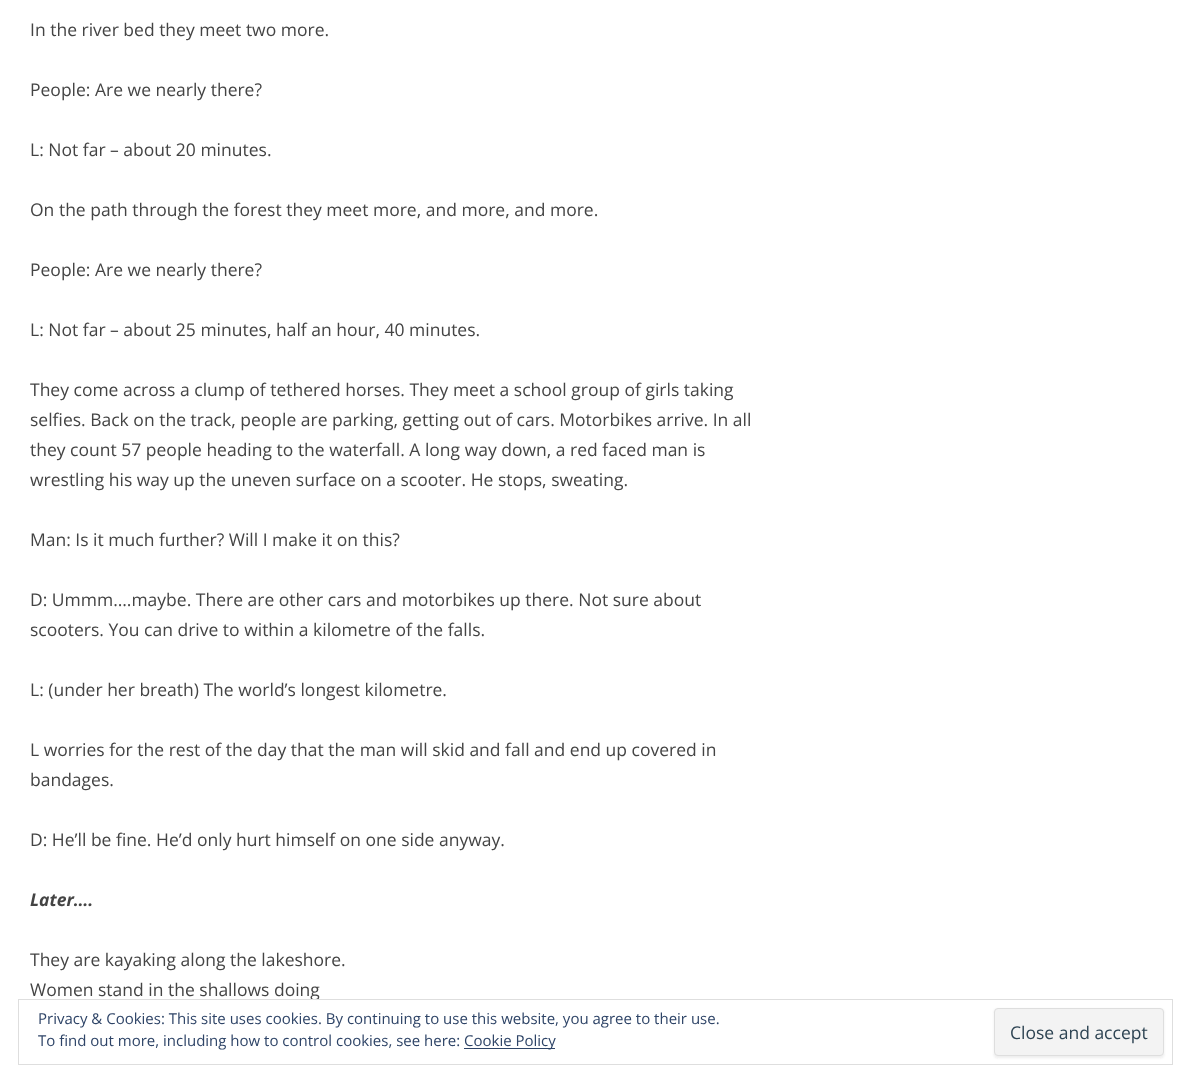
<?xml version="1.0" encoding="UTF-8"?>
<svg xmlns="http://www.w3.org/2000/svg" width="1190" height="1082">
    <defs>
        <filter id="blur1" x="-50%" y="-200%" width="200%" height="500%"><feGaussianBlur stdDeviation="1"/></filter>
    </defs>
    <rect width="100%" height="100%" fill="#FFFFFF"/>
    <text x="30" y="36" font-family="Open Sans" font-size="17.5" fill="#444444">In the river bed they meet two more.</text>
    <text x="30" y="96" font-family="Open Sans" font-size="17.5" fill="#444444">People: Are we nearly there?</text>
    <text x="30" y="156" font-family="Open Sans" font-size="17.5" fill="#444444">L: Not far – about 20 minutes.</text>
    <text x="30" y="216" font-family="Open Sans" font-size="17.5" fill="#444444">On the path through the forest they meet more, and more, and more.</text>
    <text x="30" y="276" font-family="Open Sans" font-size="17.5" fill="#444444">People: Are we nearly there?</text>
    <text x="30" y="336" font-family="Open Sans" font-size="17.5" fill="#444444">L: Not far – about 25 minutes, half an hour, 40 minutes.</text>
    <text font-family="Open Sans" font-size="17.5" fill="#444444">
        <tspan x="30" y="396">They come across a clump of tethered horses. They meet a school group of girls taking</tspan>
        <tspan x="30" y="426">selfies. Back on the track, people are parking, getting out of cars. Motorbikes arrive. In all</tspan>
        <tspan x="30" y="456">they count 57 people heading to the waterfall. A long way down, a red faced man is</tspan>
        <tspan x="30" y="486">wrestling his way up the uneven surface on a scooter. He stops, sweating.</tspan>
    </text>
    <text x="30" y="546" font-family="Open Sans" font-size="17.5" fill="#444444">Man: Is it much further? Will I make it on this?</text>
    <text font-family="Open Sans" font-size="17.5" fill="#444444">
        <tspan x="30" y="606">D: Ummm….maybe. There are other cars and motorbikes up there. Not sure about</tspan>
        <tspan x="30" y="636">scooters. You can drive to within a kilometre of the falls.</tspan>
    </text>
    <text x="30" y="696" font-family="Open Sans" font-size="17.5" fill="#444444">L: (under her breath) The world’s longest kilometre.</text>
    <text font-family="Open Sans" font-size="17.5" fill="#444444">
        <tspan x="30" y="756">L worries for the rest of the day that the man will skid and fall and end up covered in</tspan>
        <tspan x="30" y="786">bandages.</tspan>
    </text>
    <text x="30" y="846" font-family="Open Sans" font-size="17.5" fill="#444444">D: He’ll be fine. He’d only hurt himself on one side anyway.</text>
    <text x="30" y="906" font-family="Open Sans" font-size="17.5" font-weight="700" font-style="italic" fill="#444444">Later….</text>
    <text font-family="Open Sans" font-size="17.5" fill="#444444">
        <tspan x="30" y="966">They are kayaking along the lakeshore.</tspan>
        <tspan x="30" y="996">Women stand in the shallows doing</tspan>
    </text>
    <rect x="313" y="1000" width="3" height="1" fill="#FFFFFF"/>
    <rect x="18.5" y="999.5" width="1154" height="65" fill="none" stroke="#DEDEDE"/>
    <text font-family="Open Sans" font-size="15" fill="#2E4467">
        <tspan x="38" y="1024">Privacy &amp; Cookies: This site uses cookies. By continuing to use this website, you agree to their use.</tspan>
        <tspan x="38" y="1046">To find out more, including how to control cookies, see here:</tspan>
    </text>
    <rect x="464" y="1048" width="91" height="1" fill="#2E4467"/>
    <text x="464" y="1046" font-family="Open Sans" font-size="15" fill="#2E4467">Cookie Policy</text>
    <rect x="994" y="1009" width="170" height="49" rx="4" fill="#404040" fill-opacity="0.1" filter="url(#blur1)"/>
    <rect x="994.5" y="1008.5" width="169" height="47" rx="3.5" fill="#F3F3F3" stroke="#DEDEDE"/>
    <text x="1010" y="1039" font-family="Open Sans" font-size="17.5" fill="#2E4453">Close and accept</text>
</svg>
